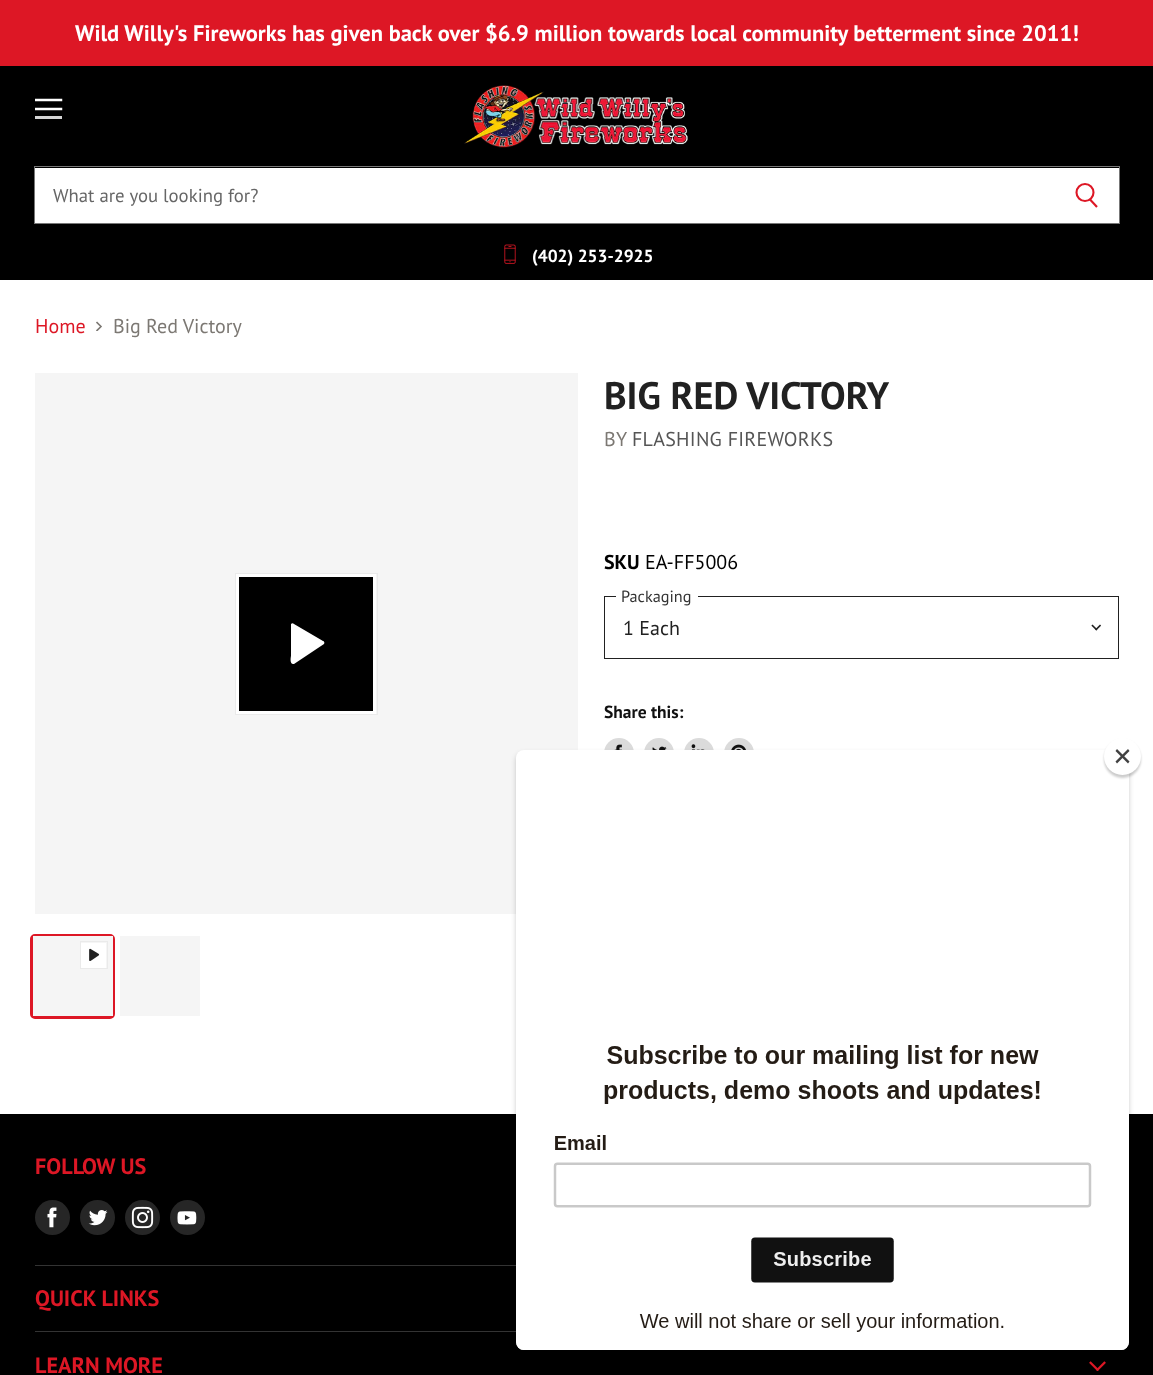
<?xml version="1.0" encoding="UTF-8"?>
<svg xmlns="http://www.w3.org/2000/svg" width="1153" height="1375">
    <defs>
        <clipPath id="clip1"><rect x="35" y="98" width="28" height="22"/></clipPath>
        <clipPath id="clip2"><path d="M 96 331 V 321 H 102.5 V 331 Z"/></clipPath>
        <filter id="blur1" x="-50%" y="-200%" width="200%" height="500%"><feGaussianBlur stdDeviation="2.5"/></filter>
        <filter id="blur2" x="-50%" y="-200%" width="200%" height="500%"><feGaussianBlur stdDeviation="1"/></filter>
    </defs>
    <rect width="100%" height="100%" fill="#FFFFFF"/>
    <rect x="0" y="0" width="1153" height="66" fill="#DD1725"/>
    <text x="75" y="41" font-family="PT Sans" font-size="22.5" font-weight="700" fill="#FFFFFF">Wild Willy's Fireworks has given back over $6.9 million towards local community betterment since 2011!</text>
    <rect x="0" y="66" width="1153" height="214" fill="#000000"/>
    <g clip-path="url(#clip1)">
        <path d="M 61 100 H 36 M 61 109 H 36" fill="none" stroke="#FFFFFF" stroke-width="2.5" stroke-linecap="square" stroke-linejoin="round"/>
    </g>
    <rect x="35" y="116" width="27" height="3" fill="#D5D5D5"/>
    <image x="464" y="85" width="224" height="63" href="img_01.png"/>
    <rect x="35" y="168" width="1084" height="55" fill="#FFFFFF"/>
    <rect x="34" y="166" width="1086" height="1" fill="#777777"/>
    <rect x="1119" y="166" width="1" height="58" fill="#777777"/>
    <rect x="34" y="223" width="1086" height="1" fill="#777777"/>
    <path d="M 1097 207 L 1090 199.5" fill="none" stroke="#DD1725" stroke-width="2.1"/>
    <circle cx="1085" cy="192.5" r="8.5" fill="none" stroke="#DD1725" stroke-width="2.1"/>
    <rect x="34" y="166" width="1" height="58" fill="#777777"/>
    <text x="53" y="202" font-family="PT Sans" font-size="18.75" fill="#666666">What are you looking for?</text>
    <image x="504" y="244" width="12" height="20" href="img_02.png"/>
    <text x="532" y="262" font-family="PT Sans" font-size="17.5" font-weight="700" fill="#FFFFFF">(402) 253-2925</text>
    <text x="35" y="333" font-family="PT Sans" font-size="20" fill="#DD1725">Home</text>
    <g clip-path="url(#clip2)">
        <path d="M 96.5 331 L 101 326.5 L 96.5 322" fill="none" stroke="#7C7873" stroke-width="1.6"/>
    </g>
    <text x="113" y="333" font-family="PT Sans" font-size="20" fill="#7C7873">Big Red Victory</text>
    <rect x="35" y="373" width="543" height="541" fill="#F5F5F5"/>
    <rect x="235.5" y="573.5" width="142" height="141" fill="none" stroke="#EAEAEA"/>
    <rect x="237.5" y="575.5" width="137" height="137" fill="#000000" stroke="#FFFFFF" stroke-width="3"/>
    <path d="M 294 624 C 293 623 292 623 291 624 V 656 C 291 656 289 665 294 664 L 324 644 C 325 643 324 641 323 641 Z" fill="#FFFFFF"/>
    <rect x="31.5" y="935.5" width="82" height="82" rx="3.5" fill="none" stroke="#DD1725" stroke-width="3"/>
    <rect x="33" y="936" width="80" height="80" fill="#F5F5F5"/>
    <rect x="80.5" y="941.5" width="27" height="27" fill="none" stroke="#EAEAEA"/>
    <rect x="81" y="943" width="25" height="25" fill="#FFFFFF"/>
    <image x="89" y="948" width="11" height="13" href="img_03.png"/>
    <rect x="120" y="936" width="80" height="80" fill="#F5F5F5"/>
    <text x="604" y="409" font-family="PT Sans" font-size="38.25" font-weight="700" fill="#212121">BIG RED VICTORY</text>
    <text x="604" y="446" font-family="PT Sans" font-size="20" letter-spacing="0.25" fill="#7C7873">BY</text>
    <text x="632" y="446" font-family="PT Sans" font-size="20" letter-spacing="0.25" fill="#555555">FLASHING FIREWORKS</text>
    <text x="604" y="569" font-family="PT Sans" font-size="20" font-weight="700" fill="#000000">SKU</text>
    <text x="645" y="569" font-family="PT Sans" font-size="20" fill="#000000">EA-FF5006</text>
    <rect x="604.5" y="596.5" width="514" height="62" fill="none" stroke="#212121"/>
    <rect x="616" y="596" width="82" height="1" fill="#FFFFFF"/>
    <text x="621" y="602" font-family="PT Sans" font-size="16.25" fill="#333333">Packaging</text>
    <text x="623" y="635" font-family="PT Sans" font-size="20" fill="#212121">1 Each</text>
    <image x="1091" y="624" width="10" height="7" href="img_04.png"/>
    <text x="604" y="718" font-family="PT Sans" font-size="17.5" font-weight="700" fill="#111111">Share this:</text>
    <circle cx="619" cy="753" r="15" fill="#DBDBDB"/>
    <image x="614" y="744" width="8" height="6" href="img_05.png"/>
    <circle cx="659" cy="753" r="15" fill="#DBDBDB"/>
    <image x="652" y="746" width="15" height="4" href="img_06.png"/>
    <circle cx="699" cy="753" r="15" fill="#DBDBDB"/>
    <image x="691" y="744" width="14" height="6" href="img_07.png"/>
    <circle cx="739" cy="753" r="15" fill="#DBDBDB"/>
    <image x="731" y="744" width="15" height="6" href="img_08.png"/>
    <rect x="0" y="1114" width="1153" height="261" fill="#000000"/>
    <rect x="35" y="1265" width="481" height="1" fill="#333333"/>
    <text x="35" y="1174" font-family="PT Sans" font-size="22.25" font-weight="700" fill="#DD1725">FOLLOW US</text>
    <circle cx="52.5" cy="1217.5" r="17.5" fill="#262626"/>
    <image x="47" y="1207" width="10" height="21" href="img_09.png"/>
    <circle cx="97.5" cy="1217.5" r="17.5" fill="#262626"/>
    <image x="88" y="1210" width="20" height="16" href="img_10.png"/>
    <circle cx="142.5" cy="1217.5" r="17.5" fill="#262626"/>
    <image x="131" y="1206" width="23" height="23" href="img_11.png"/>
    <circle cx="187.5" cy="1217.5" r="17.5" fill="#262626"/>
    <image x="177" y="1211" width="20" height="14" href="img_12.png"/>
    <rect x="35" y="1331" width="481" height="1" fill="#333333"/>
    <text x="35" y="1306" font-family="PT Sans" font-size="22.25" font-weight="700" fill="#DD1725">QUICK LINKS</text>
    <text x="35" y="1373" font-family="PT Sans" font-size="22.25" font-weight="700" fill="#DD1725">LEARN MORE</text>
    <image x="1089" y="1361" width="17" height="10" href="img_13.png"/>
    <rect x="516" y="753" width="613" height="600" rx="8" fill="#000000" fill-opacity="0.2" filter="url(#blur1)"/>
    <rect x="516" y="750" width="613" height="600" rx="8" fill="#FFFFFF"/>
    <rect x="1104" y="740" width="37" height="38" rx="18.5" fill="#000000" fill-opacity="0.2" filter="url(#blur2)"/>
    <circle cx="1122.5" cy="756.5" r="18.5" fill="#FFFFFF"/>
    <path d="M 1128 749 L 1129.5 751 L 1117 763.5 L 1115.5 761.5 Z" fill="#414141"/>
    <path d="M 1115.5 751 L 1117 749 L 1129.5 761.5 L 1128 763.5 Z" fill="#414141"/>
    <image x="516" y="1045" width="613" height="305" href="img_14.png"/>
</svg>
